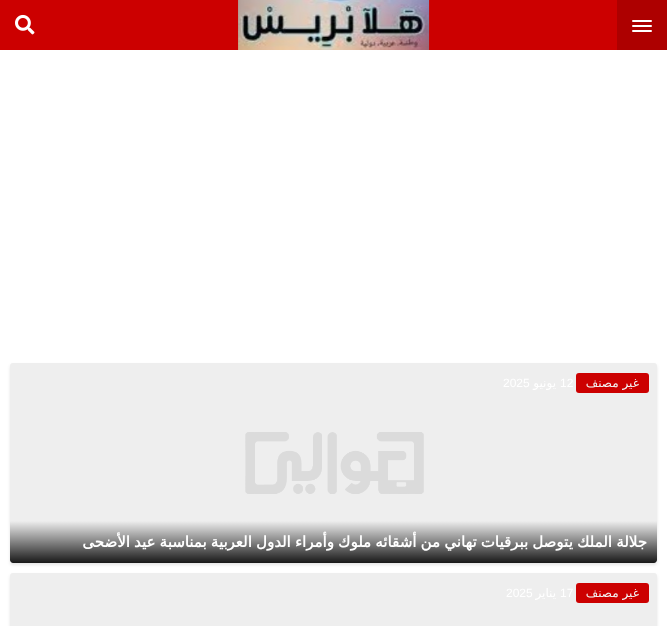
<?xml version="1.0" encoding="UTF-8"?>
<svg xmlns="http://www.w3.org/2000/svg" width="667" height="626">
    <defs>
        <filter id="blur1" x="-50%" y="-200%" width="200%" height="500%"><feGaussianBlur stdDeviation="1.5"/></filter>
        <linearGradient id="g1" gradientUnits="userSpaceOnUse" x1="334" y1="563" x2="334" y2="521"><stop offset="0" stop-color="#000000" stop-opacity="0.9"/><stop offset="1" stop-color="#000000" stop-opacity="0"/></linearGradient>
    </defs>
    <rect width="100%" height="100%" fill="#FFFFFF"/>
    <rect x="0" y="0" width="617" height="50" fill="#CC0000"/>
    <rect x="617" y="0" width="50" height="50" fill="#AD0000"/>
    <rect x="632" y="25" width="20" height="2" rx="1" fill="#FFFFFF"/>
    <rect x="632" y="20" width="20" height="2" rx="1" fill="#FFFFFF"/>
    <rect x="632" y="30" width="20" height="2" rx="1" fill="#FFFFFF"/>
    <image x="238" y="0" width="192" height="50" href="img_01.png"/>
    <image x="15" y="14" width="20" height="21" href="img_02.png"/>
    <rect x="10" y="365" width="647" height="200" rx="3" fill="#000000" fill-opacity="0.1" filter="url(#blur1)"/>
    <rect x="10" y="363" width="647" height="200" rx="3" fill="#EEEEEE"/>
    <image x="245" y="432" width="179" height="62" href="img_03.png"/>
    <rect x="576" y="373" width="73" height="20" rx="3" fill="#CC0000"/>
    <text x="639" y="387" font-family="DejaVu Sans" font-size="12" direction="rtl" fill="#F2F2F2">غير مصنف</text>
    <text x="560" y="387" font-family="Liberation Sans" font-size="12" fill="#FFFFFF">12</text>
    <text x="556" y="387" font-family="DejaVu Sans" font-size="12" direction="rtl" fill="#FFFFFF">يونيو</text>
    <text x="503" y="387" font-family="Liberation Sans" font-size="12" fill="#FFFFFF">2025</text>
    <path d="M 10 521 H 657 V 560 C 657 561.5 655.5 563 654 563 H 13 C 11.5 563 10 561.5 10 560 Z" fill="url(#g1)"/>
    <text x="647" y="547" word-spacing="-0.6" font-family="DejaVu Sans" font-size="15" font-weight="700" direction="rtl" fill="#FFFFFF">جلالة الملك يتوصل ببرقيات تهاني من أشقائه ملوك وأمراء الدول العربية بمناسبة عيد الأضحى</text>
    <rect x="10" y="575" width="647" height="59" rx="3" fill="#000000" fill-opacity="0.1" filter="url(#blur1)"/>
    <rect x="10" y="573" width="647" height="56" rx="3" fill="#EEEEEE"/>
    <rect x="576" y="583" width="73" height="20" rx="3" fill="#CC0000"/>
    <text x="639" y="597" font-family="DejaVu Sans" font-size="12" direction="rtl" fill="#F2F2F2">غير مصنف</text>
    <text x="560" y="597" font-family="Liberation Sans" font-size="12" fill="#FFFFFF">17</text>
    <text x="556" y="597" font-family="DejaVu Sans" font-size="12" direction="rtl" fill="#FFFFFF">يناير</text>
    <text x="506" y="597" font-family="Liberation Sans" font-size="12" fill="#FFFFFF">2025</text>
</svg>
